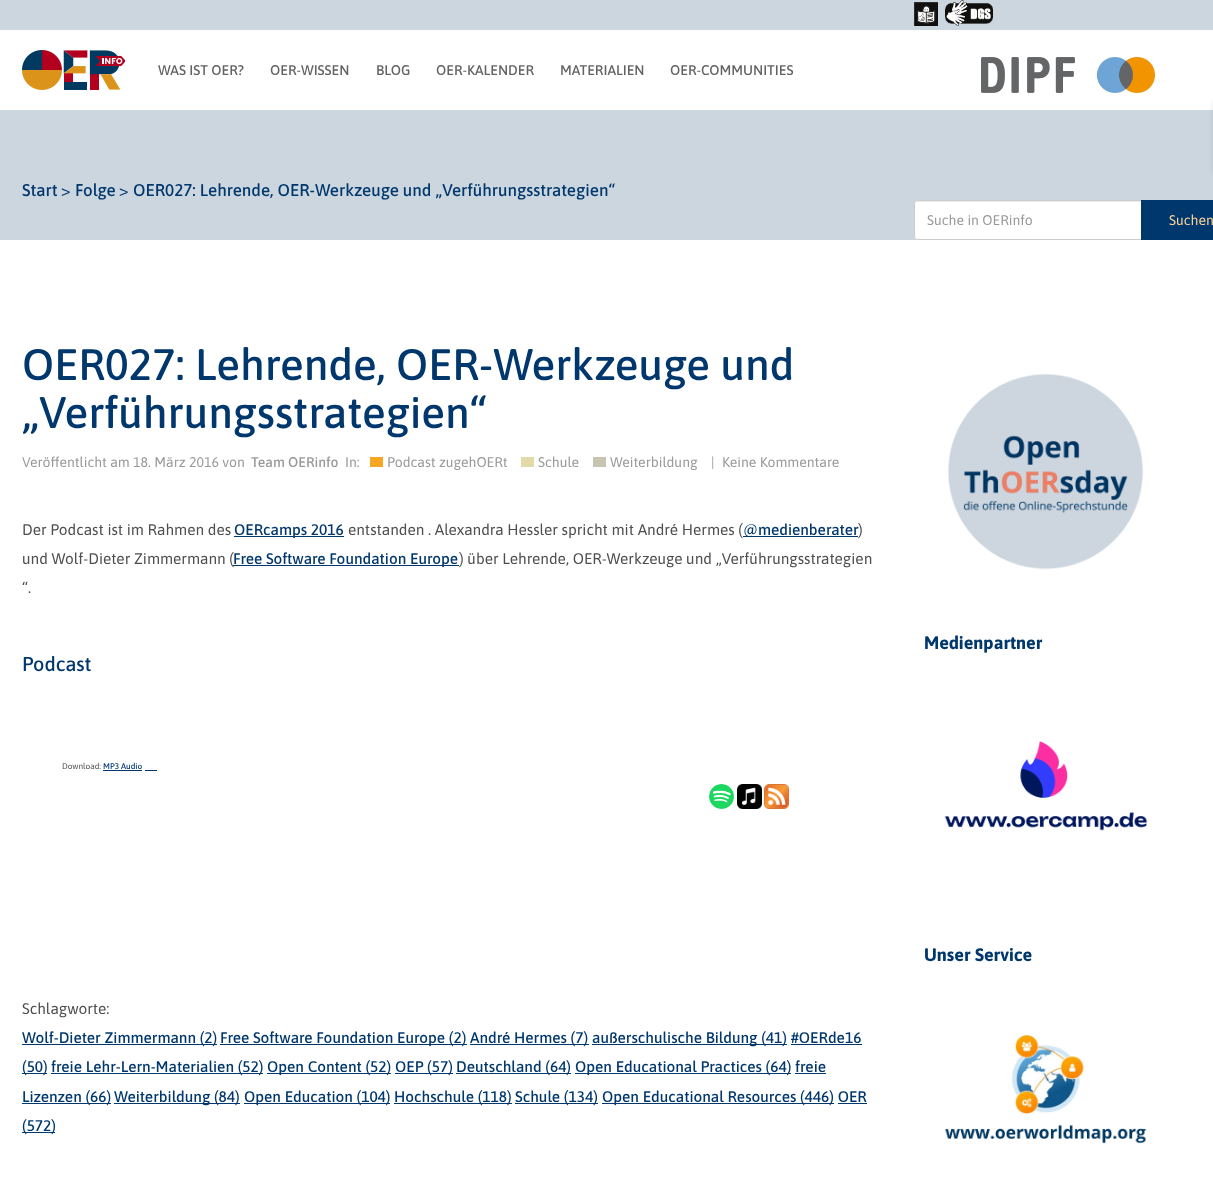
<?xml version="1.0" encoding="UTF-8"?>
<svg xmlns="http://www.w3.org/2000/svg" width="1213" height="1188">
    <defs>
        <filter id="blur1" x="-50%" y="-200%" width="200%" height="500%"><feGaussianBlur stdDeviation="2.5"/></filter>
    </defs>
    <rect width="100%" height="100%" fill="#FFFFFF"/>
    <rect x="0" y="0" width="1213" height="240" fill="#CCD6DF"/>
    <rect x="0" y="30" width="1213" height="80" fill="#FFFFFF"/>
    <image x="22" y="50" width="103" height="40" href="img_01.png"/>
    <text x="158" y="75" font-family="Asap" font-size="14" font-weight="500" fill="#646263">WAS IST OER?</text>
    <text x="270" y="75" font-family="Asap" font-size="14" font-weight="500" fill="#646263">OER-WISSEN</text>
    <text x="376" y="75" font-family="Asap" font-size="14" font-weight="500" fill="#646263">BLOG</text>
    <text x="436" y="75" font-family="Asap" font-size="14" font-weight="500" fill="#646263">OER-KALENDER</text>
    <text x="560" y="75" font-family="Asap" font-size="14" font-weight="500" fill="#646263">MATERIALIEN</text>
    <text x="670" y="75" font-family="Asap" font-size="14" font-weight="500" fill="#646263">OER-COMMUNITIES</text>
    <image x="981" y="57" width="174" height="36" href="img_02.png"/>
    <rect x="1213" y="102" width="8" height="70" fill="#000000" fill-opacity="0.1" filter="url(#blur1)"/>
    <text x="22" y="196" font-family="Asap" font-size="17" font-weight="500" fill="#00376D">Start</text>
    <text x="61" y="196" font-family="Asap" font-size="17" fill="#00376D">&gt;</text>
    <text x="75" y="196" font-family="Asap" font-size="17" font-weight="500" fill="#00376D">Folge</text>
    <text x="119" y="196" font-family="Asap" font-size="17" fill="#00376D">&gt;</text>
    <text x="133" y="196" font-family="Asap" font-size="17" font-weight="500" fill="#00376D">OER027: Lehrende, OER-Werkzeuge und „Verführungsstrategien“</text>
    <image x="914" y="2" width="24" height="24" href="img_03.png"/>
    <image x="945" y="0" width="48" height="26" href="img_04.png"/>
    <path d="M 918 200 H 1142 V 240 H 918 C 916 240 914 238 914 236 V 204 C 914 202 916 200 918 200 Z" fill="#FFFFFF"/>
    <path d="M 918 202 H 1141 V 201 H 918 C 916 201 915 203 915 205 C 915 203 916 202 918 202 Z" fill="#ECECEC"/>
    <path d="M 918 200.5 H 1141.5 V 239.5 H 918 C 916 239.5 914.5 238 914.5 236 V 204 C 914.5 202 916 200.5 918 200.5 Z" fill="none" stroke="#CCCCCC"/>
    <text x="927" y="225" font-family="Asap" font-size="14" fill="#999999">Suche in OERinfo</text>
    <rect x="1141" y="200" width="72" height="40" fill="#00376D"/>
    <text x="1169" y="225" font-family="Asap" font-size="14" fill="#FBD499">Suchen</text>
    <text font-family="Asap" font-size="44" font-weight="500" fill="#00376D">
        <tspan x="22" y="380">OER027: Lehrende, OER-Werkzeuge und</tspan>
        <tspan x="22" y="428">„Verführungsstrategien“</tspan>
    </text>
    <text x="22" y="467" font-family="Asap" font-size="14" fill="#999999">Veröffentlicht am 18. März 2016 von</text>
    <text x="251" y="467" font-family="Asap" font-size="14" font-weight="500" fill="#999999">Team OERinfo</text>
    <text x="345" y="467" font-family="Asap" font-size="14" fill="#999999">In:</text>
    <rect x="370" y="457" width="13" height="10" fill="#F5A623"/>
    <text x="387" y="467" font-family="Asap" font-size="14" fill="#999999">Podcast zugehOERt</text>
    <rect x="521" y="457" width="13" height="10" fill="#E3DAAA"/>
    <text x="538" y="467" font-family="Asap" font-size="14" fill="#999999">Schule</text>
    <rect x="593" y="457" width="13" height="10" fill="#C7C4B1"/>
    <text x="610" y="467" font-family="Asap" font-size="14" fill="#999999">Weiterbildung</text>
    <text x="711" y="467" font-family="Asap" font-size="14" fill="#999999">|</text>
    <text x="722" y="467" font-family="Asap" font-size="14" fill="#999999">Keine Kommentare</text>
    <text x="22" y="535" font-family="Asap" font-size="15.4" fill="#4E4E4E">Der Podcast ist im Rahmen des</text>
    <rect x="234" y="536" width="110" height="1" fill="#00376D"/>
    <text x="234" y="535" font-family="Asap" font-size="15.4" font-weight="500" fill="#00376D">OERcamps 2016</text>
    <text x="348" y="535" font-family="Asap" font-size="15.4" fill="#4E4E4E">entstanden . Alexandra Hessler spricht mit André Hermes (</text>
    <rect x="743" y="536" width="115" height="1" fill="#00376D"/>
    <text x="743" y="535" font-family="Asap" font-size="15.4" font-weight="500" fill="#00376D">@medienberater</text>
    <text x="858" y="535" font-family="Asap" font-size="15.4" fill="#4E4E4E">)</text>
    <text x="22" y="564" font-family="Asap" font-size="15.4" fill="#4E4E4E">und Wolf-Dieter Zimmermann (</text>
    <rect x="233" y="565" width="226" height="1" fill="#00376D"/>
    <text x="233" y="564" font-family="Asap" font-size="15.4" font-weight="500" fill="#00376D">Free Software Foundation Europe</text>
    <text x="459" y="564" font-family="Asap" font-size="15.4" fill="#4E4E4E">) über Lehrende, OER-Werkzeuge und „Verführungsstrategien</text>
    <text x="22" y="593" font-family="Asap" font-size="15.4" fill="#4E4E4E">“.</text>
    <text x="22" y="671" font-family="Asap" font-size="20" font-weight="500" fill="#00376D">Podcast</text>
    <text x="62" y="769" font-family="Asap" font-size="8.25" fill="#4E4E4E">Download:</text>
    <text x="103" y="769" font-family="Asap" font-size="8.25" font-weight="500" fill="#00376D">MP3 Audio</text>
    <rect x="103" y="770" width="39" height="1" fill="#00376D"/>
    <rect x="145" y="770" width="12" height="1" fill="#00376D"/>
    <image x="709" y="784" width="25" height="25" href="img_05.png"/>
    <image x="737" y="784" width="25" height="25" href="img_06.png"/>
    <image x="764" y="784" width="25" height="25" href="img_07.png"/>
    <text x="22" y="1014" font-family="Asap" font-size="15.4" fill="#4E4E4E">Schlagworte:</text>
    <rect x="22" y="1044" width="195" height="1" fill="#00376D"/>
    <text x="22" y="1043" font-family="Asap" font-size="15.4" font-weight="500" fill="#00376D">Wolf-Dieter Zimmermann (2)</text>
    <rect x="220" y="1044" width="247" height="1" fill="#00376D"/>
    <text x="220" y="1043" font-family="Asap" font-size="15.4" font-weight="500" fill="#00376D">Free Software Foundation Europe (2)</text>
    <rect x="470" y="1044" width="119" height="1" fill="#00376D"/>
    <text x="470" y="1043" font-family="Asap" font-size="15.4" font-weight="500" fill="#00376D">André Hermes (7)</text>
    <rect x="592" y="1044" width="195" height="1" fill="#00376D"/>
    <text x="592" y="1043" font-family="Asap" font-size="15.4" font-weight="500" fill="#00376D">außerschulische Bildung (41) #OERde16</text>
    <rect x="22" y="1073" width="25" height="1" fill="#00376D"/>
    <text x="22" y="1072" font-family="Asap" font-size="15.4" font-weight="500" fill="#00376D">(50)</text>
    <rect x="791" y="1044" width="71" height="1" fill="#00376D"/>
    <rect x="51" y="1073" width="212" height="1" fill="#00376D"/>
    <text x="51" y="1072" font-family="Asap" font-size="15.4" font-weight="500" fill="#00376D">freie Lehr-Lern-Materialien (52)</text>
    <rect x="267" y="1073" width="124" height="1" fill="#00376D"/>
    <text x="267" y="1072" font-family="Asap" font-size="15.4" font-weight="500" fill="#00376D">Open Content (52)</text>
    <rect x="395" y="1073" width="58" height="1" fill="#00376D"/>
    <text x="395" y="1072" font-family="Asap" font-size="15.4" font-weight="500" fill="#00376D">OEP (57)</text>
    <rect x="456" y="1073" width="115" height="1" fill="#00376D"/>
    <text x="456" y="1072" font-family="Asap" font-size="15.4" font-weight="500" fill="#00376D">Deutschland (64)</text>
    <rect x="575" y="1073" width="216" height="1" fill="#00376D"/>
    <text x="575" y="1072" font-family="Asap" font-size="15.4" font-weight="500" fill="#00376D">Open Educational Practices (64) freie</text>
    <rect x="22" y="1103" width="89" height="1" fill="#00376D"/>
    <text x="22" y="1102" font-family="Asap" font-size="15.4" font-weight="500" fill="#00376D">Lizenzen (66)</text>
    <rect x="795" y="1073" width="31" height="1" fill="#00376D"/>
    <rect x="114" y="1103" width="126" height="1" fill="#00376D"/>
    <text x="114" y="1102" font-family="Asap" font-size="15.4" font-weight="500" fill="#00376D">Weiterbildung (84)</text>
    <rect x="244" y="1103" width="146" height="1" fill="#00376D"/>
    <text x="244" y="1102" font-family="Asap" font-size="15.4" font-weight="500" fill="#00376D">Open Education (104)</text>
    <rect x="394" y="1103" width="118" height="1" fill="#00376D"/>
    <text x="394" y="1102" font-family="Asap" font-size="15.4" font-weight="500" fill="#00376D">Hochschule (118)</text>
    <rect x="515" y="1103" width="83" height="1" fill="#00376D"/>
    <text x="515" y="1102" font-family="Asap" font-size="15.4" font-weight="500" fill="#00376D">Schule (134)</text>
    <rect x="602" y="1103" width="232" height="1" fill="#00376D"/>
    <text x="602" y="1102" font-family="Asap" font-size="15.4" font-weight="500" fill="#00376D">Open Educational Resources (446) OER</text>
    <rect x="22" y="1132" width="33" height="1" fill="#00376D"/>
    <text x="22" y="1131" font-family="Asap" font-size="15.4" font-weight="500" fill="#00376D">(572)</text>
    <rect x="838" y="1103" width="29" height="1" fill="#00376D"/>
    <image x="947" y="373" width="197" height="197" href="img_08.png"/>
    <text x="924" y="649" font-family="Asap" font-size="18" font-weight="700" fill="#00376D">Medienpartner</text>
    <image x="944" y="741" width="204" height="90" href="img_09.png"/>
    <text x="924" y="961" font-family="Asap" font-size="18" font-weight="700" fill="#00376D">Unser Service</text>
    <image x="944" y="1034" width="203" height="110" href="img_10.png"/>
</svg>
